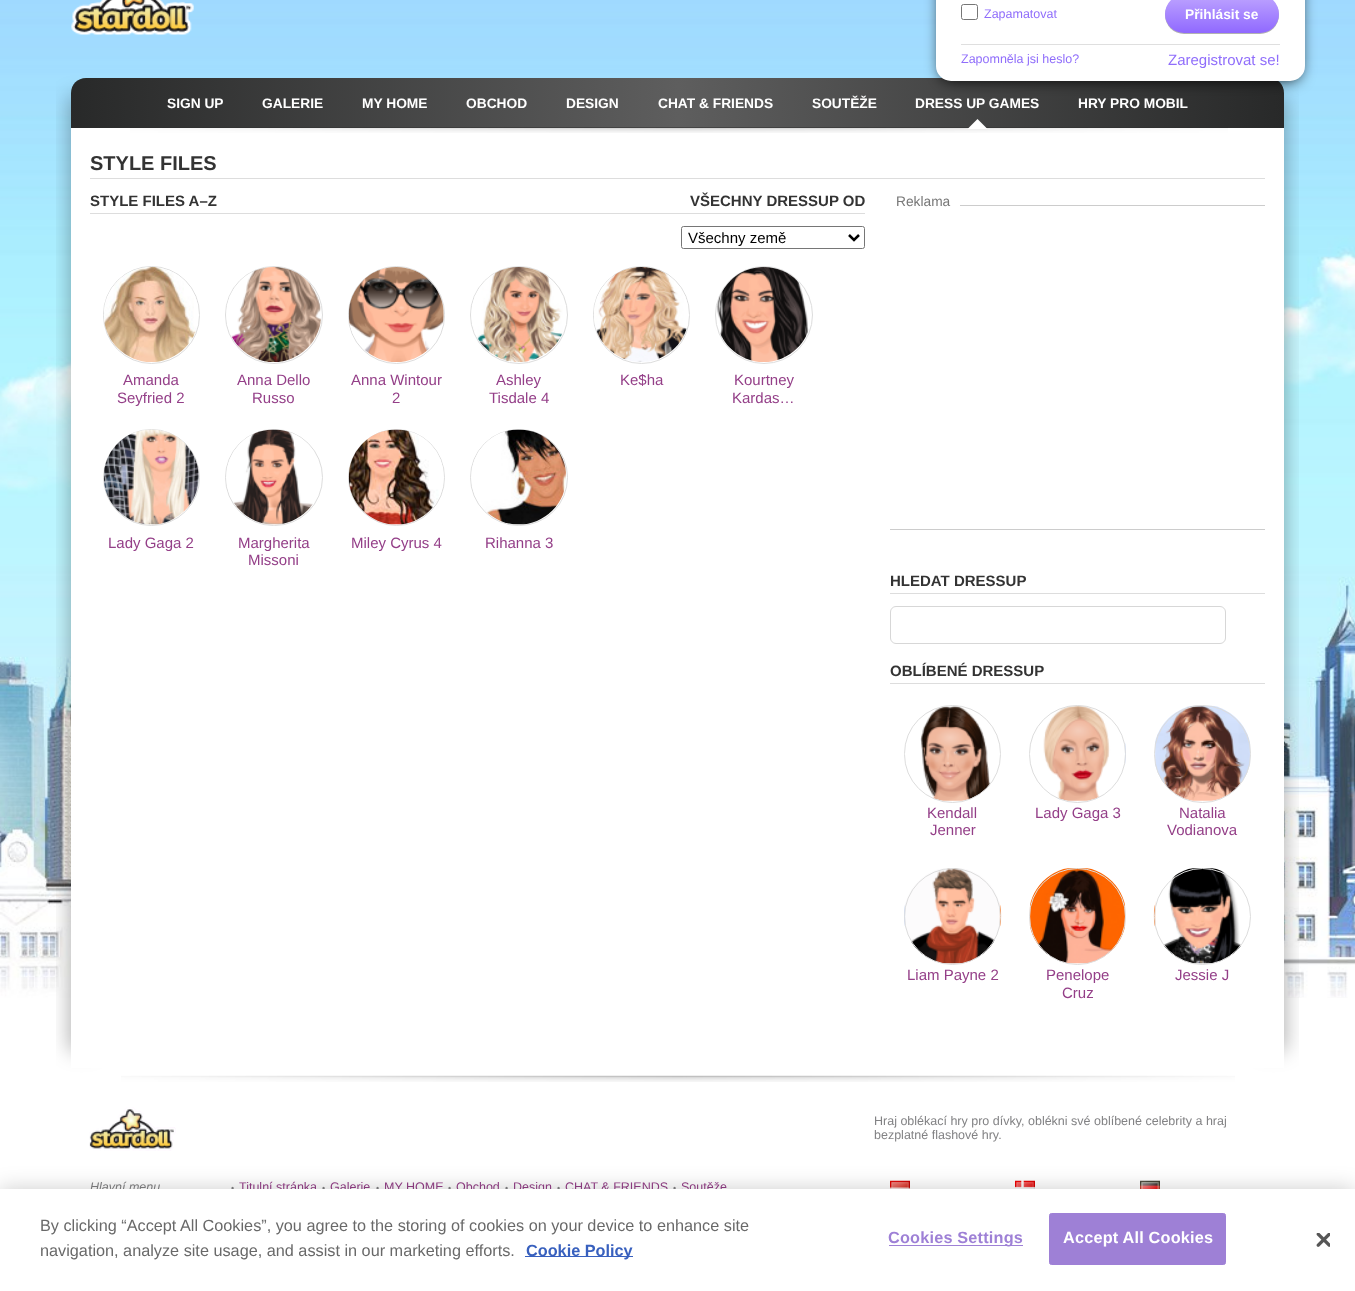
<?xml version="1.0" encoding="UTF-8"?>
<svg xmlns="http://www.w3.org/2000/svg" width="1355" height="1291">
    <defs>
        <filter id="blur1" x="-50%" y="-200%" width="200%" height="500%"><feGaussianBlur stdDeviation="10"/></filter>
        <linearGradient id="g1" gradientUnits="userSpaceOnUse" x1="71" y1="103" x2="1284" y2="102"><stop offset="0" stop-color="#282929"/><stop offset="0.5" stop-color="#5E5E5E"/><stop offset="1" stop-color="#282929"/></linearGradient>
        <filter id="blur2" x="-50%" y="-200%" width="200%" height="500%"><feGaussianBlur stdDeviation="7.5"/></filter>
        <filter id="blur3" x="-50%" y="-200%" width="200%" height="500%"><feGaussianBlur stdDeviation="0.5"/></filter>
        <linearGradient id="g2" gradientUnits="userSpaceOnUse" x1="1222" y1="-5" x2="1222" y2="33"><stop offset="0" stop-color="#BEA4FF"/><stop offset="1" stop-color="#9069FF"/></linearGradient>
        <filter id="blur4" x="-50%" y="-200%" width="200%" height="500%"><feGaussianBlur stdDeviation="11"/></filter>
    </defs>
    <rect width="100%" height="100%" fill="#FFFFFF"/>
    <image x="0" y="0" width="1355" height="998" href="img_01.png"/>
    <image x="71" y="0" width="123" height="35" href="img_02.png"/>
    <rect x="69" y="96" width="25" height="955" fill="#000000" fill-opacity="0.3" filter="url(#blur1)"/>
    <rect x="1261" y="96" width="25" height="955" fill="#000000" fill-opacity="0.3" filter="url(#blur1)"/>
    <path d="M 86 78 H 1269 C 1277.5 78 1284 84.5 1284 93 V 128 H 71 V 93 C 71 84.5 77.5 78 86 78 Z" fill="url(#g1)"/>
    <rect x="941" y="-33" width="359" height="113" rx="10" fill="#000000" filter="url(#blur2)"/>
    <rect x="936" y="-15" width="369" height="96" rx="15" fill="#FFFFFF"/>
    <rect x="961.5" y="4.5" width="16" height="15" rx="2" fill="none" stroke="#767676"/>
    <text x="984" y="18" font-family="Liberation Sans" font-size="12.5" fill="#906EFB">Zapamatovat</text>
    <rect x="1165" y="-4" width="114" height="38" rx="19" fill="#000000" fill-opacity="0.3" filter="url(#blur3)"/>
    <rect x="1165" y="-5" width="114" height="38" rx="19" fill="url(#g2)"/>
    <text x="1185" y="19" font-family="Liberation Sans" font-size="13.75" font-weight="700" fill="#FFFFFF">Přihlásit se</text>
    <rect x="961" y="44" width="319" height="1" fill="#DFDFDF"/>
    <text x="961" y="63" font-family="Liberation Sans" font-size="12.5" fill="#906EFB">Zapomněla jsi heslo?</text>
    <text x="1168" y="65" font-family="Liberation Sans" font-size="15" fill="#906EFB">Zaregistrovat se!</text>
    <text x="167" y="108" font-family="Liberation Sans" font-size="13.75" font-weight="700" fill="#FFFFFF">SIGN UP</text>
    <text x="262" y="108" font-family="Liberation Sans" font-size="13.75" font-weight="700" fill="#FFFFFF">GALERIE</text>
    <text x="362" y="108" font-family="Liberation Sans" font-size="13.75" font-weight="700" fill="#FFFFFF">MY HOME</text>
    <text x="466" y="108" font-family="Liberation Sans" font-size="13.75" font-weight="700" fill="#FFFFFF">OBCHOD</text>
    <text x="566" y="108" font-family="Liberation Sans" font-size="13.75" font-weight="700" fill="#FFFFFF">DESIGN</text>
    <text x="658" y="108" font-family="Liberation Sans" font-size="13.75" font-weight="700" fill="#FFFFFF">CHAT &amp; FRIENDS</text>
    <text x="812" y="108" font-family="Liberation Sans" font-size="13.75" font-weight="700" fill="#FFFFFF">SOUTĚŽE</text>
    <text x="915" y="108" font-family="Liberation Sans" font-size="13.75" font-weight="700" fill="#FFFFFF">DRESS UP GAMES</text>
    <rect x="71" y="128" width="1213" height="940" fill="#FFFFFF"/>
    <image x="130" y="127" width="1098" height="6" href="img_03.png"/>
    <path d="M 987.5 129 H 967.5 L 977.5 119 Z" fill="#FFFFFF"/>
    <text x="1078" y="108" font-family="Liberation Sans" font-size="13.75" font-weight="700" fill="#FFFFFF">HRY PRO MOBIL</text>
    <rect x="90" y="178" width="1175" height="1" fill="#DDDDDD"/>
    <text x="90" y="170" font-family="Liberation Sans" font-size="20" font-weight="700" fill="#333333">STYLE FILES</text>
    <text x="90" y="206" font-family="Liberation Sans" font-size="15" font-weight="700" fill="#333333">STYLE FILES A–Z</text>
    <rect x="90" y="213" width="775" height="1" fill="#DDDDDD"/>
    <text x="690" y="206" font-family="Liberation Sans" font-size="15" font-weight="700" fill="#333333">VŠECHNY DRESSUP OD</text>
    <rect x="681.5" y="226.5" width="183" height="22" rx="2" fill="none" stroke="#767676"/>
    <path d="M 849 235 L 854 240 L 859 235" fill="none" stroke="#000000" stroke-width="2.5"/>
    <text x="688" y="243" font-family="Liberation Sans" font-size="15" fill="#000000">Všechny země</text>
    <rect x="103.5" y="266.5" width="96" height="97" rx="48" fill="none" stroke="#DDDDDD"/>
    <image x="104" y="267" width="94" height="95" href="img_04.png"/>
    <text x="123" y="385" font-family="Liberation Sans" font-size="15" fill="#943F88">Amanda</text>
    <text x="117" y="403" font-family="Liberation Sans" font-size="15" fill="#943F88">Seyfried 2</text>
    <circle cx="274" cy="315" r="48.5" fill="none" stroke="#DDDDDD"/>
    <image x="226" y="267" width="95" height="95" href="img_05.png"/>
    <text x="237" y="385" font-family="Liberation Sans" font-size="15" fill="#943F88">Anna Dello</text>
    <text x="252" y="403" font-family="Liberation Sans" font-size="15" fill="#943F88">Russo</text>
    <rect x="348.5" y="266.5" width="96" height="97" rx="48" fill="none" stroke="#DDDDDD"/>
    <image x="348" y="267" width="96" height="95" href="img_06.png"/>
    <text x="351" y="385" font-family="Liberation Sans" font-size="15" fill="#943F88">Anna Wintour</text>
    <text x="392" y="403" font-family="Liberation Sans" font-size="15" fill="#943F88">2</text>
    <circle cx="519" cy="315" r="48.5" fill="none" stroke="#DDDDDD"/>
    <image x="471" y="267" width="92" height="95" href="img_07.png"/>
    <text x="496" y="385" font-family="Liberation Sans" font-size="15" fill="#943F88">Ashley</text>
    <text x="489" y="403" font-family="Liberation Sans" font-size="15" fill="#943F88">Tisdale 4</text>
    <rect x="593.5" y="266.5" width="96" height="97" rx="48" fill="none" stroke="#DDDDDD"/>
    <image x="594" y="267" width="94" height="95" href="img_08.png"/>
    <text x="620" y="385" font-family="Liberation Sans" font-size="15" fill="#943F88">Ke$ha</text>
    <circle cx="764" cy="315" r="48.5" fill="none" stroke="#DDDDDD"/>
    <image x="717" y="267" width="92" height="95" href="img_09.png"/>
    <text x="734" y="385" font-family="Liberation Sans" font-size="15" fill="#943F88">Kourtney</text>
    <text x="732" y="403" font-family="Liberation Sans" font-size="15" fill="#943F88">Kardas…</text>
    <circle cx="151.5" cy="477.5" r="48" fill="none" stroke="#DDDDDD"/>
    <image x="103" y="429" width="96" height="96" href="img_10.png"/>
    <text x="108" y="548" font-family="Liberation Sans" font-size="15" fill="#943F88">Lady Gaga 2</text>
    <rect x="225.5" y="429.5" width="97" height="96" rx="48" fill="none" stroke="#DDDDDD"/>
    <image x="226" y="429" width="87" height="96" href="img_11.png"/>
    <text x="238" y="548" font-family="Liberation Sans" font-size="15" fill="#943F88">Margherita</text>
    <text x="248" y="565" font-family="Liberation Sans" font-size="15" fill="#943F88">Missoni</text>
    <circle cx="396.5" cy="477.5" r="48" fill="none" stroke="#DDDDDD"/>
    <image x="348" y="429" width="96" height="96" href="img_12.png"/>
    <text x="351" y="548" font-family="Liberation Sans" font-size="15" fill="#943F88">Miley Cyrus 4</text>
    <rect x="470.5" y="429.5" width="97" height="96" rx="48" fill="none" stroke="#DDDDDD"/>
    <image x="471" y="429" width="95" height="96" href="img_13.png"/>
    <text x="485" y="548" font-family="Liberation Sans" font-size="15" fill="#943F88">Rihanna 3</text>
    <text x="896" y="206" font-family="Liberation Sans" font-size="13.75" fill="#787878">Reklama</text>
    <rect x="960" y="205" width="305" height="1" fill="#CCCCCC"/>
    <rect x="890" y="529" width="375" height="1" fill="#CCCCCC"/>
    <rect x="890" y="593" width="375" height="1" fill="#DDDDDD"/>
    <text x="890" y="586" font-family="Liberation Sans" font-size="15" font-weight="700" fill="#333333">HLEDAT DRESSUP</text>
    <rect x="890.5" y="606.5" width="335" height="37" rx="5.5" fill="none" stroke="#D7D7D7"/>
    <rect x="890" y="683" width="375" height="1" fill="#DDDDDD"/>
    <text x="890" y="676" font-family="Liberation Sans" font-size="15" font-weight="700" fill="#333333">OBLÍBENÉ DRESSUP</text>
    <image x="920" y="705" width="71" height="96" href="img_14.png"/>
    <rect x="904.5" y="705.5" width="96" height="97" rx="48" fill="none" stroke="#DDDDDD"/>
    <text x="927" y="818" font-family="Liberation Sans" font-size="15" fill="#943F88">Kendall</text>
    <text x="930" y="835" font-family="Liberation Sans" font-size="15" fill="#943F88">Jenner</text>
    <image x="1043" y="705" width="83" height="96" href="img_15.png"/>
    <rect x="1029.5" y="705.5" width="96" height="97" rx="48" fill="none" stroke="#DDDDDD"/>
    <text x="1035" y="818" font-family="Liberation Sans" font-size="15" fill="#943F88">Lady Gaga 3</text>
    <image x="1155" y="705" width="96" height="96" href="img_16.png"/>
    <rect x="1154.5" y="705.5" width="96" height="97" rx="48" fill="none" stroke="#DDDDDD"/>
    <text x="1179" y="818" font-family="Liberation Sans" font-size="15" fill="#943F88">Natalia</text>
    <text x="1167" y="835" font-family="Liberation Sans" font-size="15" fill="#943F88">Vodianova</text>
    <image x="904" y="868" width="98" height="96" href="img_17.png"/>
    <circle cx="952.5" cy="916.5" r="48" fill="none" stroke="#DDDDDD"/>
    <text x="907" y="980" font-family="Liberation Sans" font-size="15" fill="#943F88">Liam Payne 2</text>
    <image x="1029" y="868" width="97" height="96" href="img_18.png"/>
    <circle cx="1077.5" cy="916.5" r="48" fill="none" stroke="#DDDDDD"/>
    <text x="1046" y="980" font-family="Liberation Sans" font-size="15" fill="#943F88">Penelope</text>
    <text x="1062" y="998" font-family="Liberation Sans" font-size="15" fill="#943F88">Cruz</text>
    <image x="1153" y="868" width="89" height="96" href="img_19.png"/>
    <circle cx="1202.5" cy="916.5" r="48" fill="none" stroke="#DDDDDD"/>
    <text x="1175" y="980" font-family="Liberation Sans" font-size="15" fill="#943F88">Jessie J</text>
    <image x="121" y="1075" width="1114" height="7" href="img_20.png"/>
    <image x="89" y="1107" width="87" height="44" href="img_21.png"/>
    <text font-family="Liberation Sans" font-size="12.5" fill="#828284">
        <tspan x="874" y="1125">Hraj oblékací hry pro dívky, oblékni své oblíbené celebrity a hraj</tspan>
        <tspan x="874" y="1139">bezplatné flashové hry.</tspan>
    </text>
    <text x="90" y="1191" font-family="Liberation Sans" font-size="12.5" font-style="italic" fill="#828284">Hlavní menu</text>
    <text x="231" y="1191" font-family="Liberation Sans" font-size="9" fill="#828284">•</text>
    <text x="239" y="1191" font-family="Liberation Sans" font-size="12.5" fill="#943F88">Titulní stránka</text>
    <text x="322" y="1191" font-family="Liberation Sans" font-size="9" fill="#828284">•</text>
    <text x="330" y="1191" font-family="Liberation Sans" font-size="12.5" fill="#943F88">Galerie</text>
    <text x="376" y="1191" font-family="Liberation Sans" font-size="9" fill="#828284">•</text>
    <text x="384" y="1191" font-family="Liberation Sans" font-size="12.5" fill="#943F88">MY HOME</text>
    <text x="448" y="1191" font-family="Liberation Sans" font-size="9" fill="#828284">•</text>
    <text x="456" y="1191" font-family="Liberation Sans" font-size="12.5" fill="#943F88">Obchod</text>
    <text x="505" y="1191" font-family="Liberation Sans" font-size="9" fill="#828284">•</text>
    <text x="513" y="1191" font-family="Liberation Sans" font-size="12.5" fill="#943F88">Design</text>
    <text x="557" y="1191" font-family="Liberation Sans" font-size="9" fill="#828284">•</text>
    <text x="565" y="1191" font-family="Liberation Sans" font-size="12.5" fill="#943F88">CHAT &amp; FRIENDS</text>
    <text x="673" y="1191" font-family="Liberation Sans" font-size="9" fill="#828284">•</text>
    <text x="681" y="1191" font-family="Liberation Sans" font-size="12.5" fill="#943F88">Soutěže</text>
    <image x="890" y="1180" width="20" height="9" href="img_22.png"/>
    <image x="1015" y="1180" width="20" height="9" href="img_23.png"/>
    <image x="1140" y="1180" width="20" height="9" href="img_24.png"/>
    <rect x="0" y="1189" width="1355" height="102" fill="#000000" fill-opacity="0.2" filter="url(#blur4)"/>
    <rect x="0" y="1189" width="1355" height="102" fill="#FFFFFF"/>
    <text font-family="Liberation Sans" font-size="16.25" fill="#696969">
        <tspan x="40" y="1231">By clicking “Accept All Cookies”, you agree to the storing of cookies on your device to enhance site</tspan>
        <tspan x="40" y="1256">navigation, analyze site usage, and assist in our marketing efforts.</tspan>
    </text>
    <rect x="525" y="1256" width="108" height="1" fill="#3860BE"/>
    <text x="526" y="1256" font-family="Liberation Sans" font-size="16.25" font-weight="700" fill="#3860BE">Cookie Policy</text>
    <rect x="889" y="1245" width="134" height="1" fill="#9E80D6"/>
    <text x="888" y="1243" font-family="Liberation Sans" font-size="16.25" font-weight="700" letter-spacing="0.2" fill="#9E80D6">Cookies Settings</text>
    <rect x="1049.5" y="1213.5" width="176" height="51" rx="2" fill="#9E80D6" stroke="#9E80D6"/>
    <text x="1063" y="1243" font-family="Liberation Sans" font-size="16.25" font-weight="700" letter-spacing="0.2" fill="#FFFFFF">Accept All Cookies</text>
    <image x="1316" y="1233" width="14" height="14" href="img_25.png"/>
</svg>
